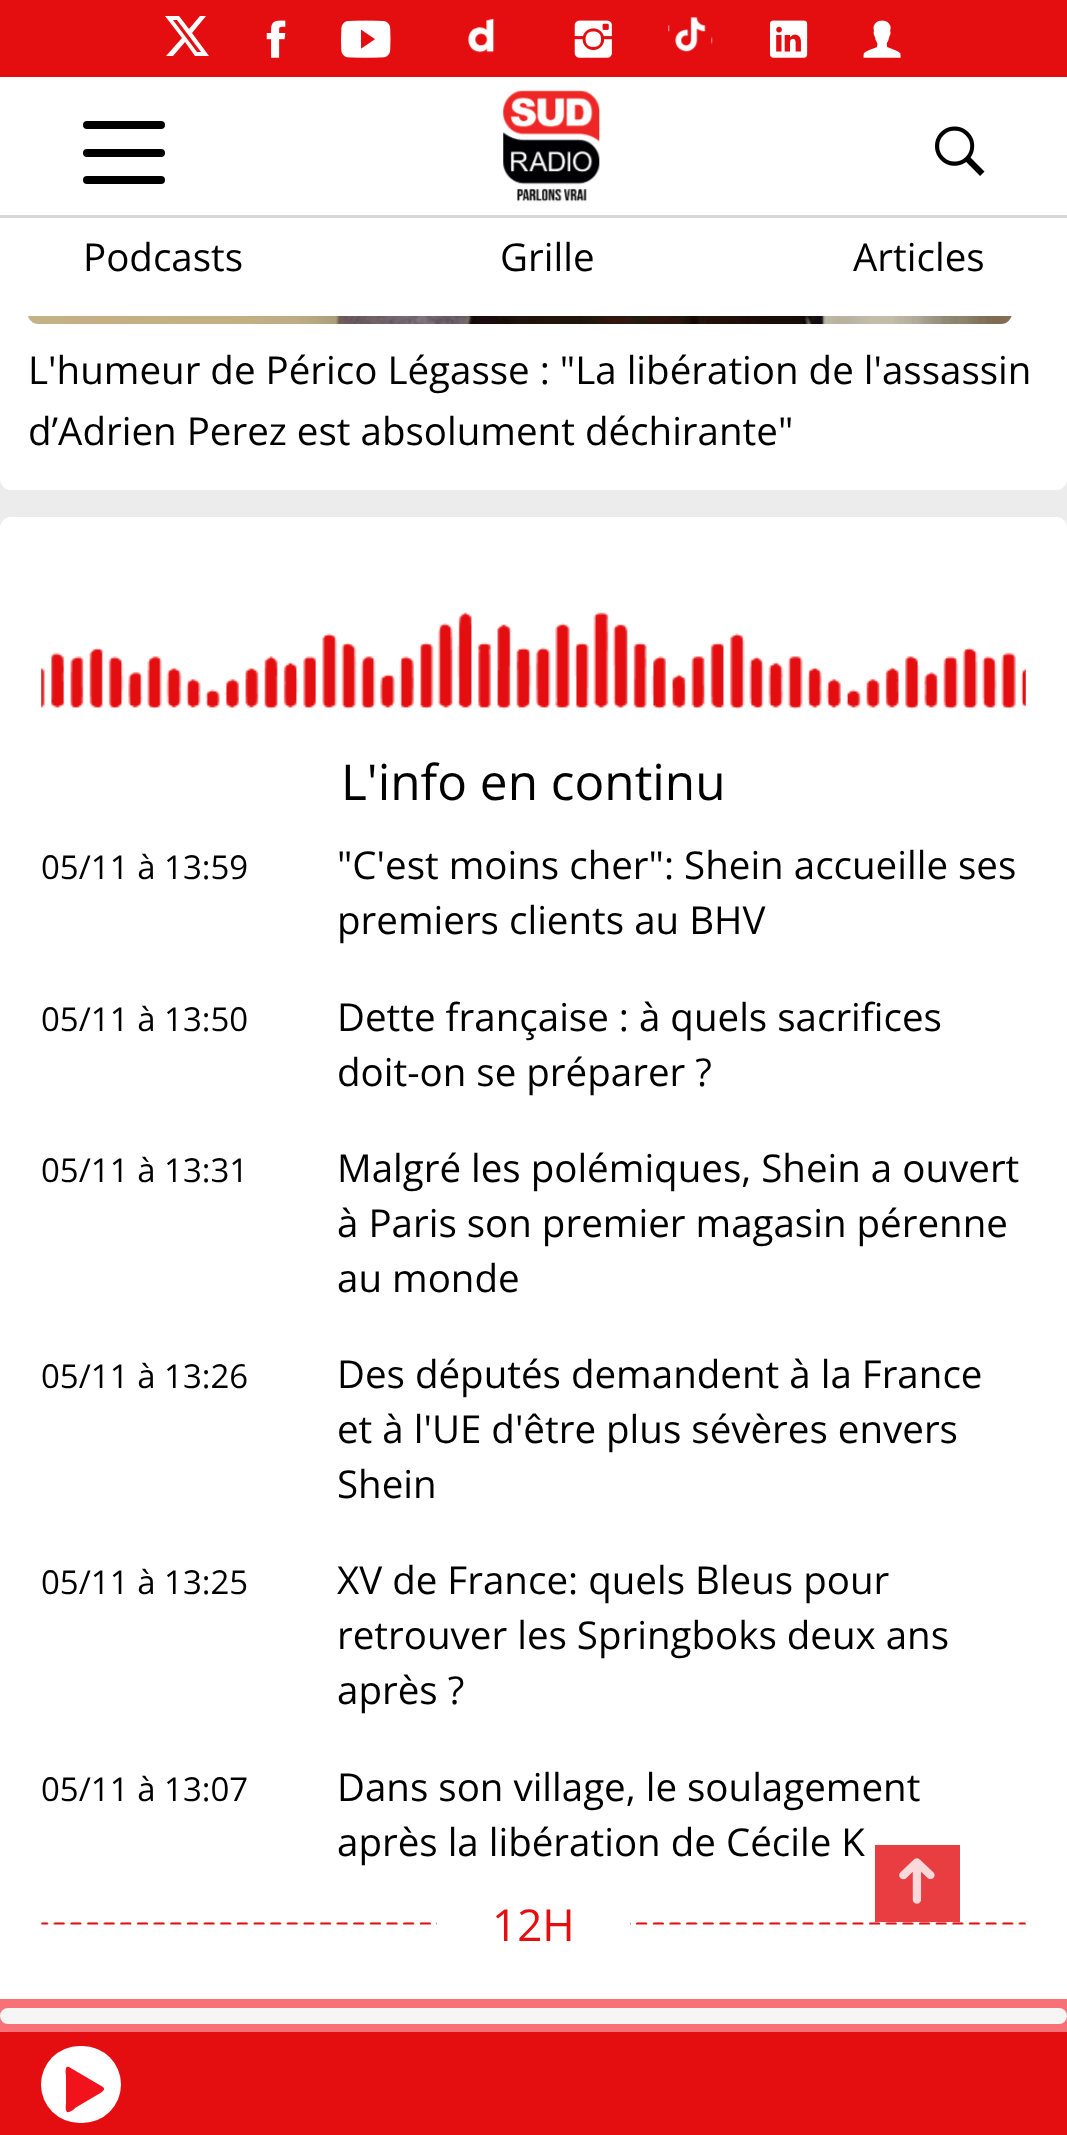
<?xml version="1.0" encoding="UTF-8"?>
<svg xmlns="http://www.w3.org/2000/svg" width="1067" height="2135">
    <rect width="100%" height="100%" fill="#ECECEC"/>
    <rect x="0" y="-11" width="1067" height="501" rx="11" fill="#FFFFFF"/>
    <rect x="0" y="0" width="1067" height="77" fill="#E40E11"/>
    <path d="M 200 16 H 206 L 192 33 L 209 56 H 195 L 185 42 L 173 56 H 166 L 182 38 L 165 16 H 179 L 189 29 Z M 197 52 H 201 L 177 20 H 173 Z" fill="#FFFFFF"/>
    <image x="266" y="20" width="20" height="38" href="img_01.png"/>
    <image x="341" y="20" width="50" height="38" href="img_02.png"/>
    <image x="468" y="18" width="27" height="35" href="img_03.png"/>
    <image x="574" y="20" width="38" height="38" href="img_04.png"/>
    <image x="668" y="17" width="45" height="35" href="img_05.png"/>
    <image x="770" y="20" width="38" height="38" href="img_06.png"/>
    <image x="863" y="20" width="38" height="38" href="img_07.png"/>
    <rect x="83" y="121" width="82" height="8" rx="4" fill="#000000"/>
    <rect x="83" y="149" width="82" height="8" rx="4" fill="#000000"/>
    <rect x="83" y="176" width="82" height="8" rx="4" fill="#000000"/>
    <image x="503" y="90" width="97" height="112" href="img_08.png"/>
    <image x="935" y="126" width="50" height="50" href="img_09.png"/>
    <rect x="0" y="215" width="1067" height="3" fill="#D6D6D6"/>
    <text x="83" y="271" font-family="Open Sans" font-size="38.5" fill="#000000">Podcasts</text>
    <text x="500" y="271" font-family="Open Sans" font-size="38.5" fill="#000000">Grille</text>
    <text x="853" y="271" font-family="Open Sans" font-size="38.5" fill="#000000">Articles</text>
    <image x="28" y="316" width="984" height="8" href="img_10.png"/>
    <text font-family="Open Sans" font-size="38.5" fill="#000000">
        <tspan x="28" y="384">L'humeur de Périco Légasse : "La libération de l'assassin</tspan>
        <tspan x="28" y="445">d’Adrien Perez est absolument déchirante"</tspan>
    </text>
    <rect x="0" y="517" width="1067" height="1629" rx="11" fill="#FFFFFF"/>
    <image x="41" y="612" width="985" height="97" href="img_11.png"/>
    <text x="341" y="800" font-family="Open Sans" font-size="49.5" fill="#000000">L'info en continu</text>
    <text x="41" y="879" font-family="Open Sans" font-size="33" fill="#000000">05/11 à 13:59</text>
    <text font-family="Open Sans" font-size="38.5" fill="#000000">
        <tspan x="337" y="879">"C'est moins cher": Shein accueille ses</tspan>
        <tspan x="337" y="934">premiers clients au BHV</tspan>
    </text>
    <text x="41" y="1031" font-family="Open Sans" font-size="33" fill="#000000">05/11 à 13:50</text>
    <text font-family="Open Sans" font-size="38.5" fill="#000000">
        <tspan x="337" y="1031">Dette française : à quels sacrifices</tspan>
        <tspan x="337" y="1086">doit-on se préparer ?</tspan>
    </text>
    <text x="41" y="1182" font-family="Open Sans" font-size="33" fill="#000000">05/11 à 13:31</text>
    <text font-family="Open Sans" font-size="38.5" fill="#000000">
        <tspan x="337" y="1182">Malgré les polémiques, Shein a ouvert</tspan>
        <tspan x="337" y="1237">à Paris son premier magasin pérenne</tspan>
        <tspan x="337" y="1292">au monde</tspan>
    </text>
    <text x="41" y="1388" font-family="Open Sans" font-size="33" fill="#000000">05/11 à 13:26</text>
    <text font-family="Open Sans" font-size="38.5" fill="#000000">
        <tspan x="337" y="1388">Des députés demandent à la France</tspan>
        <tspan x="337" y="1443">et à l'UE d'être plus sévères envers</tspan>
        <tspan x="337" y="1498">Shein</tspan>
    </text>
    <text x="41" y="1594" font-family="Open Sans" font-size="33" fill="#000000">05/11 à 13:25</text>
    <text font-family="Open Sans" font-size="38.5" fill="#000000">
        <tspan x="337" y="1594">XV de France: quels Bleus pour</tspan>
        <tspan x="337" y="1649">retrouver les Springboks deux ans</tspan>
        <tspan x="337" y="1704">après ?</tspan>
    </text>
    <text x="41" y="1801" font-family="Open Sans" font-size="33" fill="#000000">05/11 à 13:07</text>
    <text font-family="Open Sans" font-size="38.5" fill="#000000">
        <tspan x="337" y="1801">Dans son village, le soulagement</tspan>
        <tspan x="337" y="1856">après la libération de Cécile K</tspan>
    </text>
    <image x="41" y="1922" width="985" height="3" href="img_12.png"/>
    <rect x="437" y="1922" width="193" height="3" fill="#FFFFFF"/>
    <text x="492" y="1941" font-family="Open Sans" font-size="44" fill="#E40E11">12H</text>
    <rect x="875" y="1845" width="85" height="77" fill="#E40E11" fill-opacity="0.8"/>
    <image x="899" y="1858" width="36" height="46" href="img_13.png"/>
    <rect x="0" y="2032" width="1067" height="103" fill="#E40E11"/>
    <rect x="0" y="1999" width="1067" height="33" fill="#F77177"/>
    <rect x="0" y="2008" width="1067" height="16" rx="8" fill="#F5F5F5"/>
    <rect x="41" y="2046" width="80" height="77" rx="38.5" fill="#FFFFFF"/>
    <path d="M 103 2087 C 107 2090 99 2094 97 2095 L 75 2108 C 75 2109 69 2113 67 2112 C 65 2110 66 2104 66 2103 V 2076 C 66 2075 64 2065 69 2067 Z" fill="#F1121C"/>
</svg>
